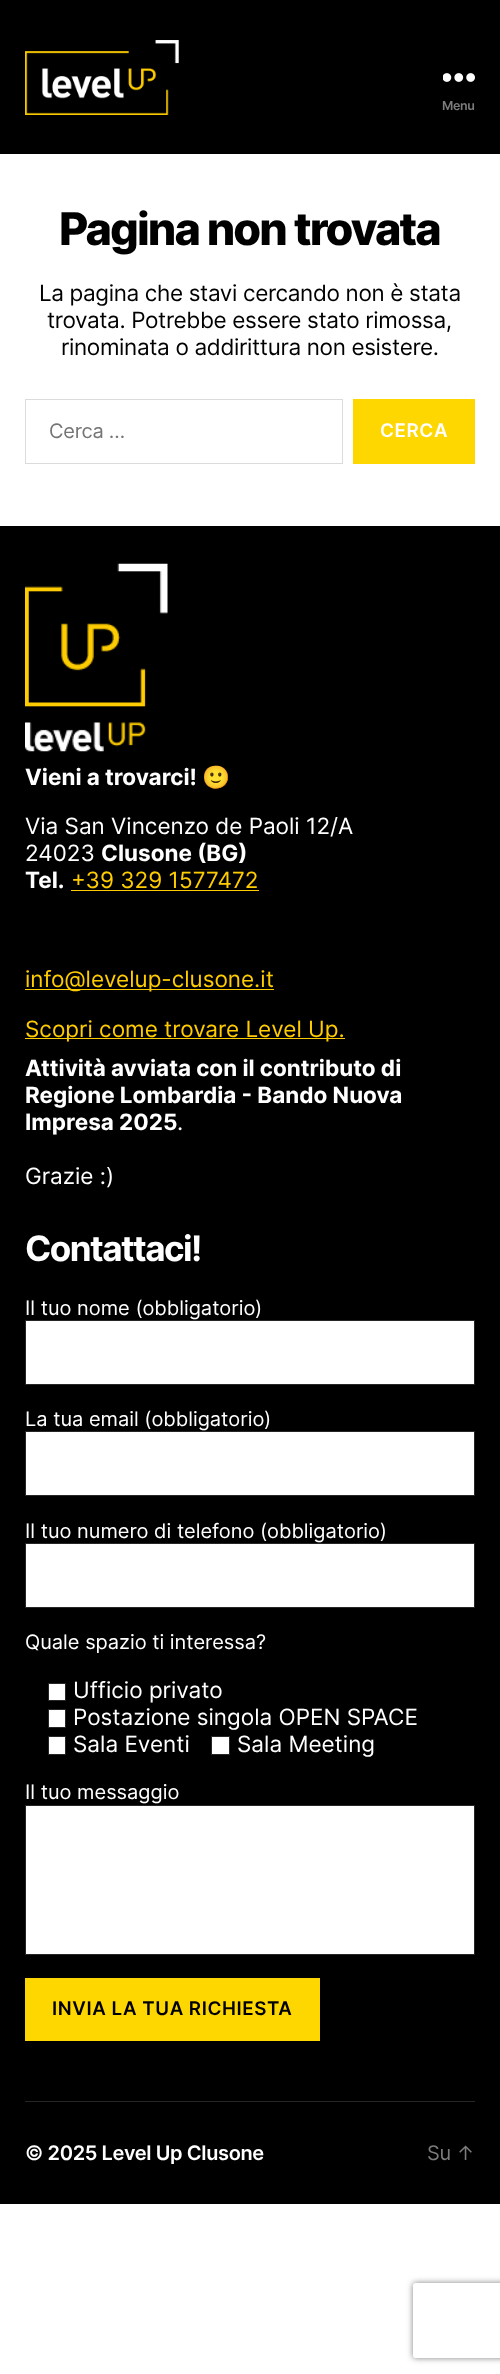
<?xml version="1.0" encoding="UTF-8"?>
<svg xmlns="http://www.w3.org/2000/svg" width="500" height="2374">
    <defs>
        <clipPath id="clip1"><path d="M 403 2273 H 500 V 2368 H 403 Z M 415.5 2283 H 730.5 C 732 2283 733 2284 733 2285.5 V 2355.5 C 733 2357 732 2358 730.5 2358 H 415.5 C 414 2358 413 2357 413 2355.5 V 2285.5 C 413 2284 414 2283 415.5 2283 Z" clip-rule="evenodd"/></clipPath>
        <filter id="blur1" x="-50%" y="-200%" width="200%" height="500%"><feGaussianBlur stdDeviation="3"/></filter>
    </defs>
    <rect width="100%" height="100%" fill="#FFFFFF"/>
    <rect x="0" y="0" width="500" height="154" fill="#000000"/>
    <image x="25" y="40" width="154" height="75" href="img_01.png"/>
    <image x="443" y="73" width="32" height="9" href="img_02.png"/>
    <text x="442" y="110" font-family="Inter" font-size="12.5" font-weight="600" letter-spacing="-0.35" fill="#7C7C7C">Menu</text>
    <text x="59" y="245" font-family="Inter" font-size="45" font-weight="800" letter-spacing="-1.9" fill="#000000">Pagina non trovata</text>
    <text x="39" y="301" font-family="Inter" font-size="22.5" letter-spacing="-0.35" fill="#000000">La pagina che stavi cercando non è stata</text>
    <text x="47" y="328" font-family="Inter" font-size="22.5" letter-spacing="-0.35" fill="#000000">trovata. Potrebbe essere stato rimossa,</text>
    <text x="61" y="355" font-family="Inter" font-size="22.5" letter-spacing="-0.35" fill="#000000">rinominata o addirittura non esistere.</text>
    <rect x="25.5" y="399.5" width="317" height="64" fill="none" stroke="#DBDBDB"/>
    <text x="49" y="438" font-family="Inter" font-size="20" letter-spacing="-0.25" fill="#757575">Cerca …</text>
    <rect x="353" y="399" width="122" height="65" fill="#FFD700"/>
    <text x="380" y="437" font-family="Inter" font-size="18.75" font-weight="600" letter-spacing="0.6" fill="#FFFFFF">CERCA</text>
    <rect x="0" y="526" width="500" height="1678" fill="#000000"/>
    <rect x="25" y="2101" width="450" height="1" fill="#262626"/>
    <image x="25" y="563" width="143" height="189" href="img_03.png"/>
    <text x="25" y="785" font-family="Inter" font-size="22.5" font-weight="700" fill="#FFFFFF">Vieni a trovarci!</text>
    <text x="202" y="785" font-family="Noto Color Emoji" font-size="22.5" font-weight="700" fill="#FFFFFF">🙂</text>
    <text font-family="Inter" font-size="22.5" fill="#FFFFFF">
        <tspan x="25" y="834">Via San Vincenzo de Paoli 12/A</tspan>
        <tspan x="25" y="861">24023</tspan>
    </text>
    <text x="101" y="861" font-family="Inter" font-size="22.5" font-weight="700" fill="#FFFFFF">Clusone (BG)</text>
    <text x="25" y="888" font-family="Inter" font-size="22.5" font-weight="700" fill="#FFFFFF">Tel.</text>
    <text x="71" y="888" font-family="Inter" font-size="22.5" fill="#FFCC00">+39 329 1577472</text>
    <rect x="71" y="890" width="188" height="1" fill="#FFCC00"/>
    <rect x="25" y="989" width="249" height="1" fill="#FFCC00"/>
    <text x="25" y="987" font-family="Inter" font-size="22.5" fill="#FFCC00">info@levelup-clusone.it</text>
    <rect x="25" y="1038" width="320" height="1" fill="#FFCC00"/>
    <text x="25" y="1037" font-family="Inter" font-size="22.5" fill="#FFCC00">Scopri come trovare Level Up.</text>
    <text font-family="Inter" font-size="22.5" font-weight="700" fill="#FFFFFF">
        <tspan x="25" y="1076">Attività avviata con il contributo di</tspan>
        <tspan x="25" y="1103">Regione Lombardia - Bando Nuova</tspan>
        <tspan x="25" y="1130">Impresa 2025</tspan>
    </text>
    <text x="177" y="1130" font-family="Inter" font-size="22.5" fill="#FFFFFF">.</text>
    <text x="25" y="1184" font-family="Inter" font-size="22.5" fill="#FFFFFF">Grazie :)</text>
    <text x="25" y="1261" font-family="Inter" font-size="35" font-weight="700" letter-spacing="-1.5" fill="#FFFFFF">Contattaci!</text>
    <text x="25" y="1315" font-family="Inter" font-size="20" fill="#FFFFFF">Il tuo nome (obbligatorio)</text>
    <rect x="25.5" y="1320.5" width="449" height="64" fill="#FFFFFF" stroke="#262626"/>
    <text x="25" y="1426" font-family="Inter" font-size="20" fill="#FFFFFF">La tua email (obbligatorio)</text>
    <rect x="25.5" y="1431.5" width="449" height="64" fill="#FFFFFF" stroke="#262626"/>
    <text x="25" y="1538" font-family="Inter" font-size="20" fill="#FFFFFF">Il tuo numero di telefono (obbligatorio)</text>
    <rect x="25.5" y="1543.5" width="449" height="64" fill="#FFFFFF" stroke="#262626"/>
    <text x="25" y="1649" font-family="Inter" font-size="20" fill="#FFFFFF">Quale spazio ti interessa?</text>
    <rect x="48.5" y="1683.5" width="17" height="17" fill="#FFFFFF" stroke="#262626"/>
    <text x="73" y="1698" font-family="Inter" font-size="22.5" fill="#FFFFFF">Ufficio privato</text>
    <rect x="48.5" y="1709.5" width="17" height="18" fill="#FFFFFF" stroke="#262626"/>
    <text x="73" y="1725" font-family="Inter" font-size="22.5" fill="#FFFFFF">Postazione singola OPEN SPACE</text>
    <rect x="48.5" y="1736.5" width="17" height="18" fill="#FFFFFF" stroke="#262626"/>
    <text x="73" y="1752" font-family="Inter" font-size="22.5" fill="#FFFFFF">Sala Eventi</text>
    <rect x="211.5" y="1736.5" width="18" height="18" fill="#FFFFFF" stroke="#262626"/>
    <text x="237" y="1752" font-family="Inter" font-size="22.5" fill="#FFFFFF">Sala Meeting</text>
    <text x="25" y="1799" font-family="Inter" font-size="20" fill="#FFFFFF">Il tuo messaggio</text>
    <rect x="25.5" y="1805.5" width="449" height="149" fill="#FFFFFF" stroke="#262626"/>
    <rect x="25" y="1978" width="295" height="63" fill="#FFD700"/>
    <text x="52" y="2015" font-family="Inter" font-size="18.75" font-weight="600" letter-spacing="0.6" fill="#000000">INVIA LA TUA RICHIESTA</text>
    <text x="25" y="2160" font-family="Inter" font-size="20" font-weight="600" letter-spacing="-0.35" fill="#FFFFFF">© 2025 Level Up Clusone</text>
    <text x="427" y="2160" font-family="Inter" font-size="20" letter-spacing="-0.35" fill="#7C7C7C">Su ↑</text>
    <g clip-path="url(#clip1)">
        <rect x="413" y="2283" width="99" height="75" rx="2.5" fill="#808080" filter="url(#blur1)"/>
    </g>
</svg>
